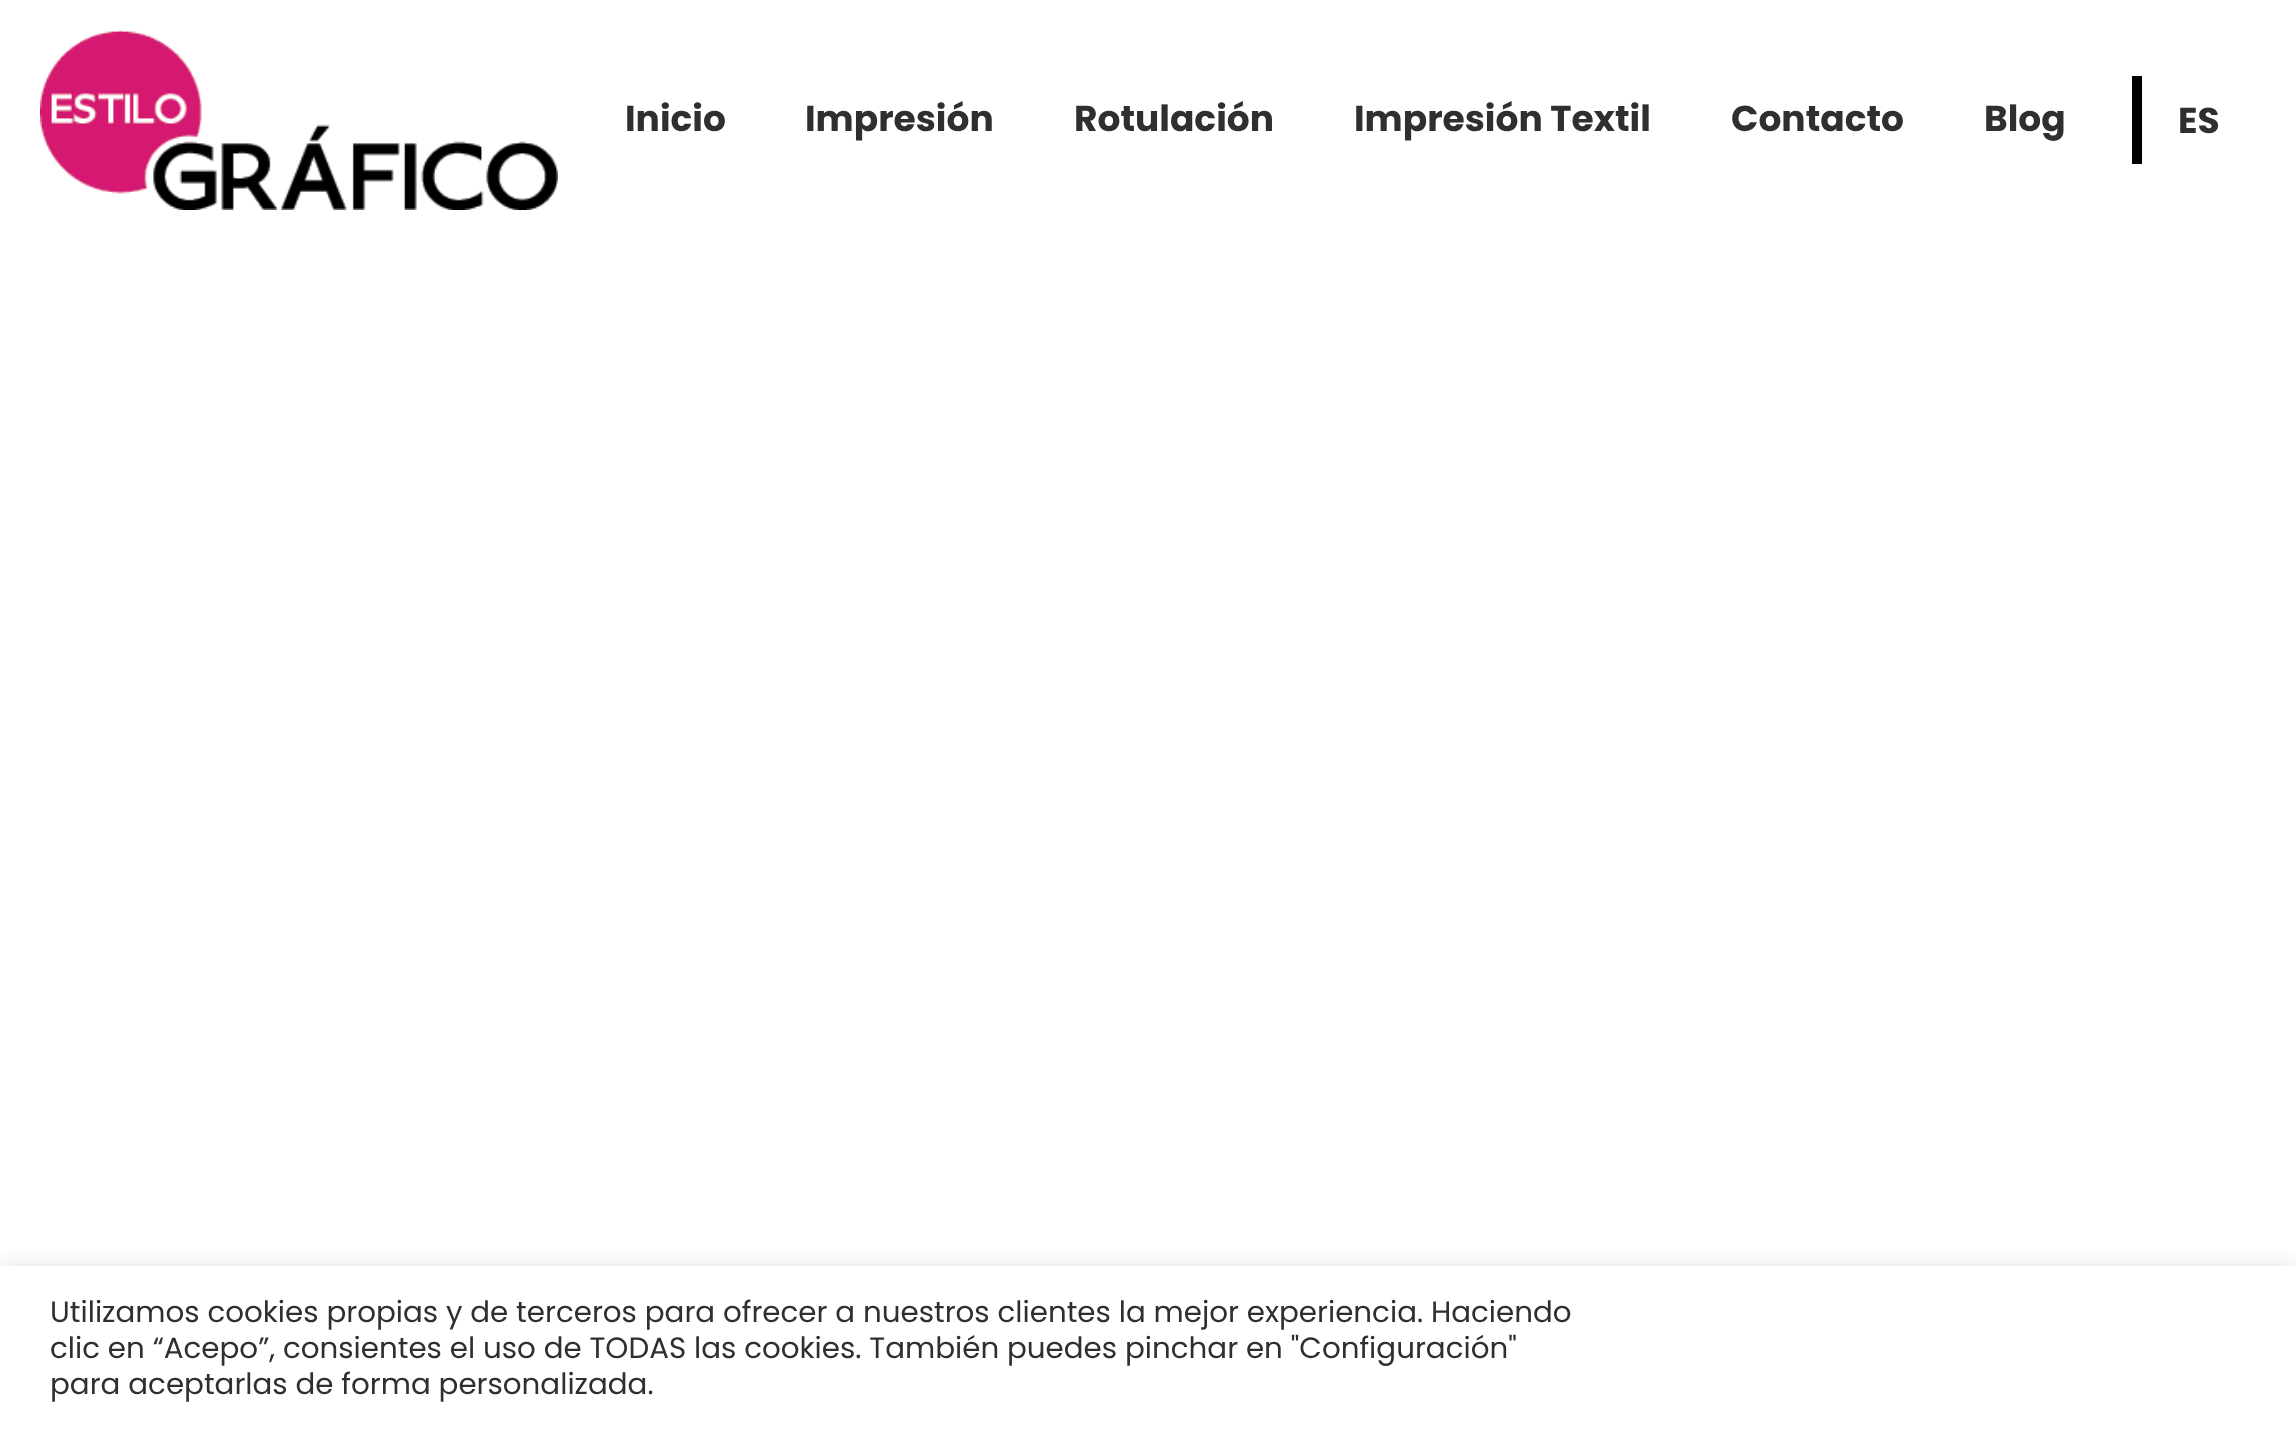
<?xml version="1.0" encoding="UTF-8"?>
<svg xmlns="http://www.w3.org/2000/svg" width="2296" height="1430">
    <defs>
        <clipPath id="clip1"><rect x="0" y="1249" width="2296" height="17"/></clipPath>
        <filter id="blur1" x="-50%" y="-200%" width="200%" height="500%"><feGaussianBlur stdDeviation="10"/></filter>
    </defs>
    <rect width="100%" height="100%" fill="#FFFFFF"/>
    <image x="40" y="30" width="518" height="180" href="img_01.png"/>
    <text x="625" y="131" font-family="Poppins" font-size="36" font-weight="700" fill="#2F2F2F">Inicio</text>
    <text x="805" y="131" font-family="Poppins" font-size="36" font-weight="700" fill="#2F2F2F">Impresión</text>
    <text x="1074" y="131" font-family="Poppins" font-size="36" font-weight="700" fill="#2F2F2F">Rotulación</text>
    <text x="1354" y="131" font-family="Poppins" font-size="36" font-weight="700" fill="#2F2F2F">Impresión Textil</text>
    <text x="1731" y="131" font-family="Poppins" font-size="36" font-weight="700" fill="#2F2F2F">Contacto</text>
    <text x="1984" y="131" font-family="Poppins" font-size="36" font-weight="700" fill="#2F2F2F">Blog</text>
    <rect x="2132" y="76" width="10" height="88" fill="#000000"/>
    <text x="2178" y="133" font-family="Poppins" font-size="36" font-weight="700" fill="#2F2F2F">ES</text>
    <g clip-path="url(#clip1)">
        <rect x="0" y="1264" width="2296" height="164" fill="#ACABAB" fill-opacity="0.3" filter="url(#blur1)"/>
    </g>
    <text font-family="Poppins" font-size="29.33" fill="#2F2F2F">
        <tspan x="50" y="1322">Utilizamos cookies propias y de terceros para ofrecer a nuestros clientes la mejor experiencia. Haciendo</tspan>
        <tspan x="50" y="1358">clic en “Acepo”, consientes el uso de TODAS las cookies. También puedes pinchar en "Configuración"</tspan>
        <tspan x="50" y="1394">para aceptarlas de forma personalizada.</tspan>
    </text>
</svg>
